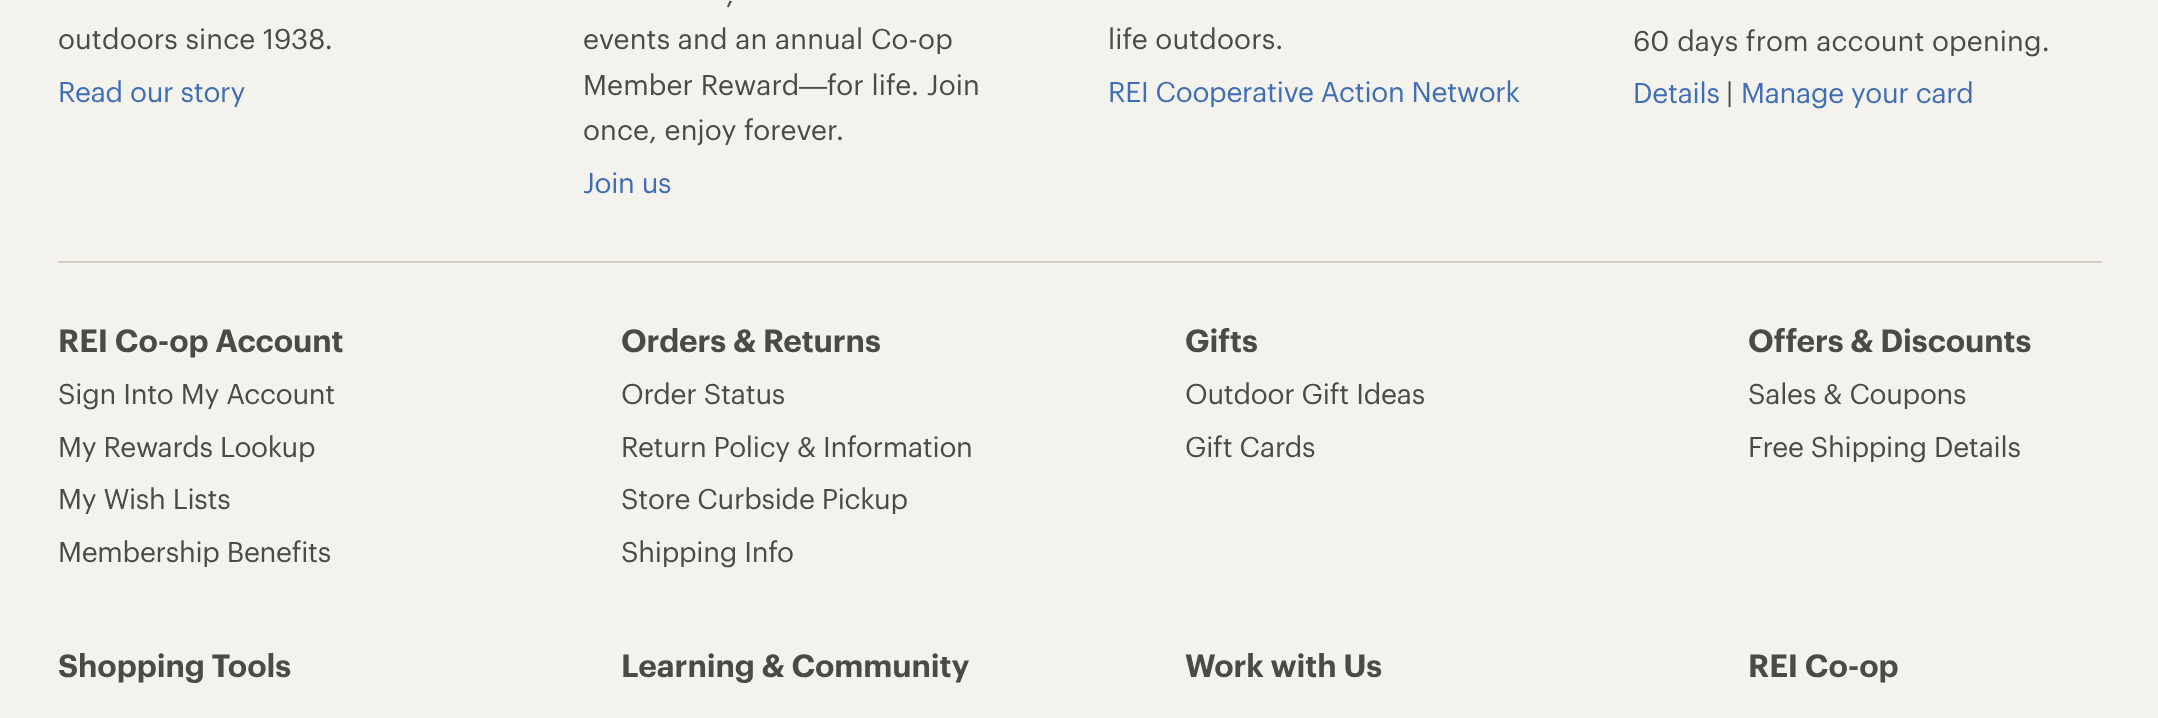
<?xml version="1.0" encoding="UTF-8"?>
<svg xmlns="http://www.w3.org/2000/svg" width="2158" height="718">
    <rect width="100%" height="100%" fill="#F4F2ED"/>
    <rect x="58" y="261" width="2044" height="2" fill="#D5CFC3"/>
    <text x="58" y="49" font-family="Graphik" font-size="28" letter-spacing="0.15" fill="#4B4A48">outdoors since 1938.</text>
    <text x="58" y="102" font-family="Graphik" font-size="28" letter-spacing="-0.25" fill="#406EB5">Read our story</text>
    <text x="726" y="4" font-family="Graphik" font-size="28" letter-spacing="0.15" fill="#4B4A48">,</text>
    <text font-family="Graphik" font-size="28" letter-spacing="0.15" fill="#4B4A48">
        <tspan x="583" y="49">events and an annual Co-op</tspan>
        <tspan x="583" y="95">Member Reward</tspan>
    </text>
    <text x="799" y="95" font-family="Liberation Sans" font-size="28" letter-spacing="0.15" fill="#4B4A48">—</text>
    <text x="827" y="95" font-family="Graphik" font-size="28" letter-spacing="0.15" fill="#4B4A48">for life. Join</text>
    <text x="583" y="140" font-family="Graphik" font-size="28" letter-spacing="0.15" fill="#4B4A48">once, enjoy forever.</text>
    <text x="583" y="193" font-family="Graphik" font-size="28" letter-spacing="-0.25" fill="#406EB5">Join us</text>
    <text x="1108" y="49" font-family="Graphik" font-size="28" letter-spacing="0.15" fill="#4B4A48">life outdoors.</text>
    <text x="1108" y="102" font-family="Graphik" font-size="28" letter-spacing="-0.25" fill="#406EB5">REI Cooperative Action Network</text>
    <text x="1633" y="51" font-family="Graphik" font-size="28" letter-spacing="0.15" fill="#4B4A48">60 days from account opening.</text>
    <text x="1633" y="103" font-family="Graphik" font-size="28" letter-spacing="-0.25" fill="#406EB5">Details</text>
    <text x="1726" y="103" font-family="Graphik" font-size="28" letter-spacing="0.15" fill="#4B4A48">|</text>
    <text x="1741" y="103" font-family="Graphik" font-size="28" letter-spacing="-0.25" fill="#406EB5">Manage your card</text>
    <text x="58" y="352" font-family="Graphik" font-size="31.5" font-weight="600" letter-spacing="-0.1" fill="#4B4A48">REI Co-op Account</text>
    <text font-family="Graphik" font-size="28" letter-spacing="-0.25" fill="#4B4A48">
        <tspan x="58" y="404">Sign Into My Account</tspan>
        <tspan x="58" y="457">My Rewards Lookup</tspan>
        <tspan x="58" y="509">My Wish Lists</tspan>
        <tspan x="58" y="562">Membership Benefits</tspan>
    </text>
    <text x="621" y="352" font-family="Graphik" font-size="31.5" font-weight="600" letter-spacing="-0.1" fill="#4B4A48">Orders &amp; Returns</text>
    <text font-family="Graphik" font-size="28" letter-spacing="-0.25" fill="#4B4A48">
        <tspan x="621" y="404">Order Status</tspan>
        <tspan x="621" y="457">Return Policy &amp; Information</tspan>
        <tspan x="621" y="509">Store Curbside Pickup</tspan>
        <tspan x="621" y="562">Shipping Info</tspan>
    </text>
    <text x="1185" y="352" font-family="Graphik" font-size="31.5" font-weight="600" letter-spacing="-0.1" fill="#4B4A48">Gifts</text>
    <text font-family="Graphik" font-size="28" letter-spacing="-0.25" fill="#4B4A48">
        <tspan x="1185" y="404">Outdoor Gift Ideas</tspan>
        <tspan x="1185" y="457">Gift Cards</tspan>
    </text>
    <text x="1748" y="352" font-family="Graphik" font-size="31.5" font-weight="600" letter-spacing="-0.1" fill="#4B4A48">Offers &amp; Discounts</text>
    <text font-family="Graphik" font-size="28" letter-spacing="-0.25" fill="#4B4A48">
        <tspan x="1748" y="404">Sales &amp; Coupons</tspan>
        <tspan x="1748" y="457">Free Shipping Details</tspan>
    </text>
    <text x="58" y="677" font-family="Graphik" font-size="31.5" font-weight="600" letter-spacing="-0.1" fill="#4B4A48">Shopping Tools</text>
    <text x="621" y="677" font-family="Graphik" font-size="31.5" font-weight="600" letter-spacing="-0.1" fill="#4B4A48">Learning &amp; Community</text>
    <text x="1185" y="677" font-family="Graphik" font-size="31.5" font-weight="600" letter-spacing="-0.1" fill="#4B4A48">Work with Us</text>
    <text x="1748" y="677" font-family="Graphik" font-size="31.5" font-weight="600" letter-spacing="-0.1" fill="#4B4A48">REI Co-op</text>
</svg>
